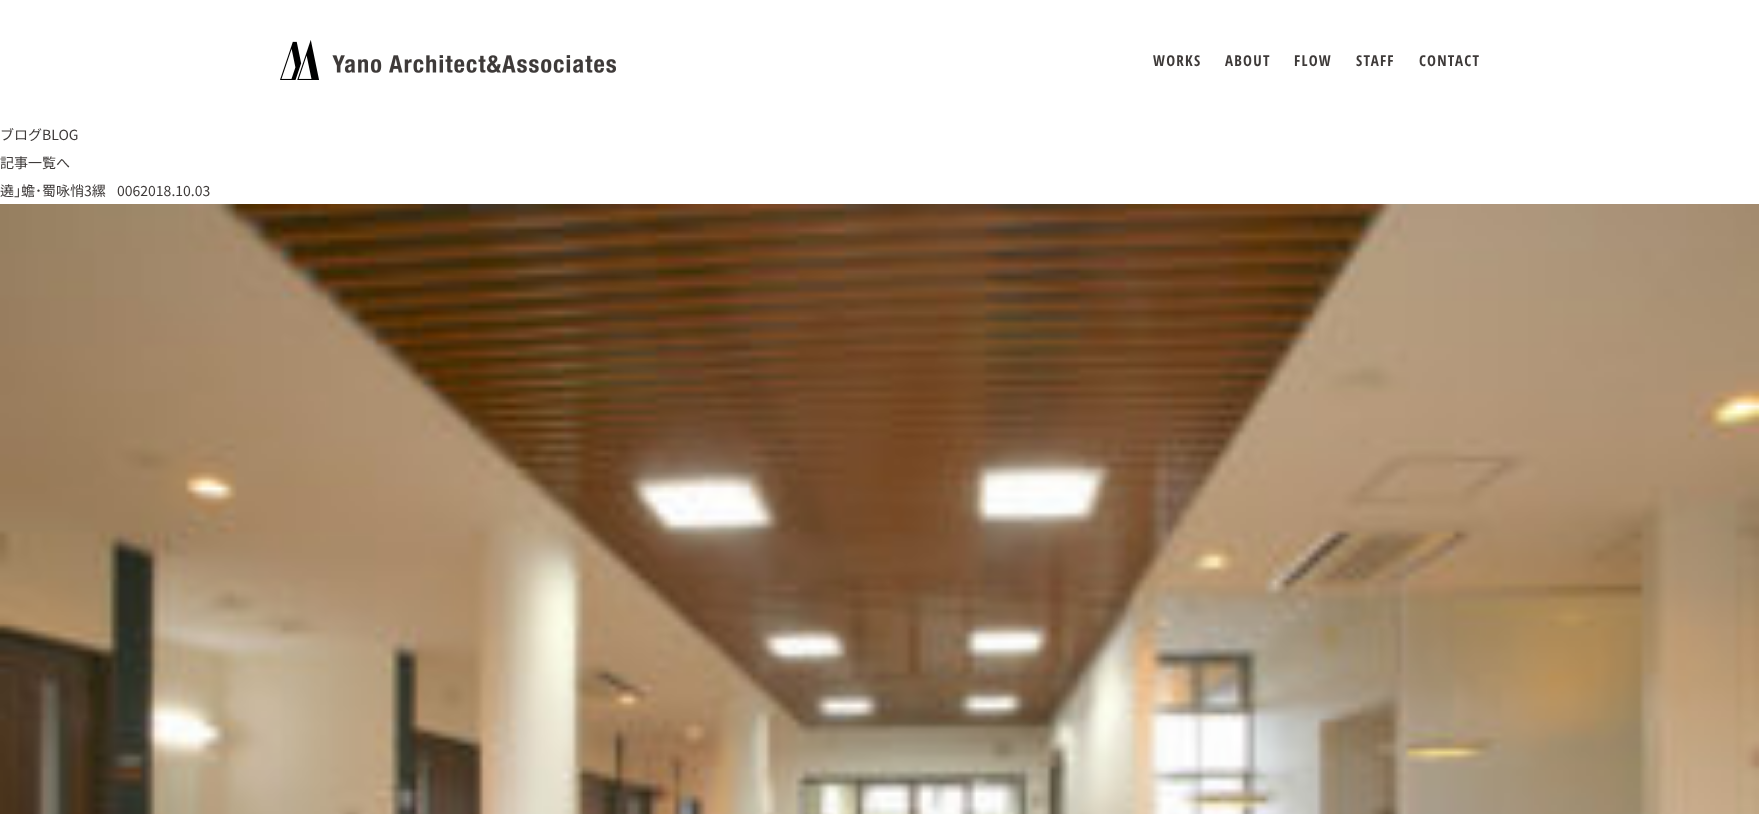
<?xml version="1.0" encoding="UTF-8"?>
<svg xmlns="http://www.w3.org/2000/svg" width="1759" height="814">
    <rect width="100%" height="100%" fill="#FFFFFF"/>
    <image x="280" y="40" width="336" height="40" href="img_01.png"/>
    <text x="1153" y="66" font-family="Open Sans Condensed" font-size="15" font-weight="700" letter-spacing="1.25" fill="#3E3A39">WORKS</text>
    <text x="1225" y="66" font-family="Open Sans Condensed" font-size="15" font-weight="700" letter-spacing="1.25" fill="#3E3A39">ABOUT</text>
    <text x="1294" y="66" font-family="Open Sans Condensed" font-size="15" font-weight="700" letter-spacing="1.25" fill="#3E3A39">FLOW</text>
    <text x="1356" y="66" font-family="Open Sans Condensed" font-size="15" font-weight="700" letter-spacing="1.25" fill="#3E3A39">STAFF</text>
    <text x="1419" y="66" font-family="Open Sans Condensed" font-size="15" font-weight="700" letter-spacing="1.25" fill="#3E3A39">CONTACT</text>
    <text x="0" y="140" font-family="Noto Sans CJK JP" font-size="14" fill="#3E3A39">ブログBLOG</text>
    <text x="0" y="168" font-family="Noto Sans CJK JP" font-size="14" fill="#3E3A39">記事一覧へ</text>
    <text x="0" y="196" font-family="Noto Sans CJK JP" font-size="14" fill="#3E3A39">遶｣蟾･蜀咏悄3縲</text>
    <text x="117" y="196" font-family="Noto Sans CJK JP" font-size="14" fill="#3E3A39">0062018.10.03</text>
    <image x="0" y="204" width="1759" height="610" href="img_02.png"/>
</svg>
